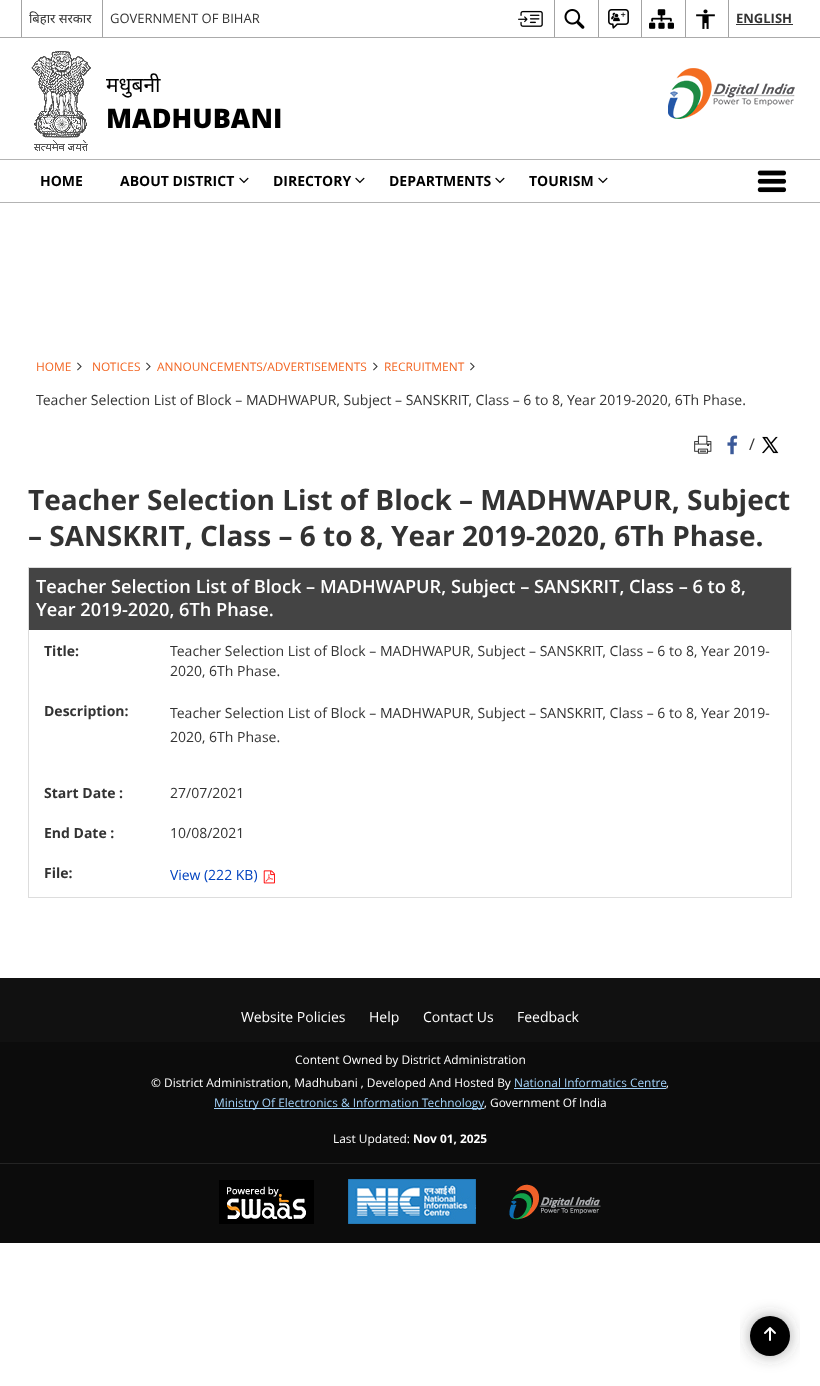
<?xml version="1.0" encoding="UTF-8"?>
<svg xmlns="http://www.w3.org/2000/svg" width="820" height="1386">
    <defs>
        <filter id="blur1" x="-50%" y="-200%" width="200%" height="500%"><feGaussianBlur stdDeviation="9.5"/></filter>
    </defs>
    <rect width="100%" height="100%" fill="#FFFFFF"/>
    <rect x="0" y="37" width="820" height="1" fill="#ABABAB"/>
    <rect x="21" y="0" width="1" height="37" fill="#A3A3A3"/>
    <text x="29" y="23" font-family="Noto Sans" font-size="13" fill="#333333">बिहार सरकार</text>
    <rect x="102" y="0" width="1" height="37" fill="#A3A3A3"/>
    <text x="110" y="23" font-family="Open Sans" font-size="13" fill="#333333">GOVERNMENT OF BIHAR</text>
    <image x="518" y="10" width="25" height="17" href="img_01.png"/>
    <rect x="554" y="0" width="1" height="37" fill="#A3A3A3"/>
    <image x="564" y="9" width="21" height="20" href="img_02.png"/>
    <rect x="598" y="0" width="1" height="37" fill="#A3A3A3"/>
    <image x="608" y="9" width="21" height="20" href="img_03.png"/>
    <rect x="641" y="0" width="1" height="37" fill="#A3A3A3"/>
    <image x="649" y="9" width="25" height="20" href="img_04.png"/>
    <rect x="685" y="0" width="1" height="37" fill="#A3A3A3"/>
    <image x="696" y="9" width="19" height="20" href="img_05.png"/>
    <rect x="728" y="0" width="1" height="37" fill="#A3A3A3"/>
    <text x="736" y="23" font-family="Open Sans" font-size="13" font-weight="700" fill="#333333">ENGLISH</text>
    <rect x="736" y="24" width="57" height="1" fill="#333333"/>
    <image x="31" y="51" width="60" height="100" href="img_06.png"/>
    <text x="106" y="92" font-family="Noto Sans" font-size="21" fill="#000000">मधुबनी</text>
    <text x="106" y="128" font-family="Open Sans" font-size="27" font-weight="800" fill="#000000">MADHUBANI</text>
    <image x="668" y="68" width="127" height="51" href="img_07.png"/>
    <rect x="0" y="159" width="820" height="1" fill="#B3B3B3"/>
    <rect x="0" y="202" width="820" height="1" fill="#B3B3B3"/>
    <text x="40" y="186" font-family="Open Sans" font-size="14" font-weight="700" fill="#000000">HOME</text>
    <text x="120" y="186" font-family="Open Sans" font-size="14" font-weight="700" fill="#000000">ABOUT DISTRICT</text>
    <image x="239" y="177" width="10" height="7" href="img_08.png"/>
    <text x="273" y="186" font-family="Open Sans" font-size="14" font-weight="700" fill="#000000">DIRECTORY</text>
    <image x="355" y="177" width="10" height="7" href="img_08.png"/>
    <text x="389" y="186" font-family="Open Sans" font-size="14" font-weight="700" fill="#000000">DEPARTMENTS</text>
    <image x="495" y="177" width="10" height="7" href="img_08.png"/>
    <text x="529" y="186" font-family="Open Sans" font-size="14" font-weight="700" fill="#000000">TOURISM</text>
    <image x="598" y="177" width="10" height="7" href="img_08.png"/>
    <image x="757" y="170" width="30" height="23" href="img_09.png"/>
    <text x="36" y="371" font-family="Open Sans" font-size="11.9" fill="#F26522">HOME</text>
    <image x="77" y="362" width="5" height="9" href="img_10.png"/>
    <text x="92" y="371" font-family="Open Sans" font-size="11.9" fill="#F26522">NOTICES</text>
    <image x="146" y="362" width="5" height="9" href="img_10.png"/>
    <text x="157" y="371" font-family="Open Sans" font-size="11.9" fill="#F26522">ANNOUNCEMENTS/ADVERTISEMENTS</text>
    <image x="373" y="362" width="5" height="9" href="img_10.png"/>
    <text x="384" y="371" font-family="Open Sans" font-size="11.9" fill="#F26522">RECRUITMENT</text>
    <image x="470" y="362" width="5" height="9" href="img_10.png"/>
    <text x="36" y="405" font-family="Open Sans" font-size="14" fill="#333333">Teacher Selection List of Block – MADHWAPUR, Subject – SANSKRIT, Class – 6 to 8, Year 2019-2020, 6Th Phase.</text>
    <image x="694" y="435" width="18" height="19" href="img_11.png"/>
    <image x="727" y="435" width="11" height="20" href="img_12.png"/>
    <text x="749" y="450" font-family="Open Sans" font-size="16" fill="#333333">/</text>
    <image x="762" y="436" width="17" height="18" href="img_13.png"/>
    <text font-family="Open Sans" font-size="28" font-weight="700" fill="#333333">
        <tspan x="28" y="510">Teacher Selection List of Block – MADHWAPUR, Subject</tspan>
        <tspan x="28" y="546">– SANSKRIT, Class – 6 to 8, Year 2019-2020, 6Th Phase.</tspan>
    </text>
    <rect x="28" y="567" width="764" height="1" fill="#DDDDDD"/>
    <rect x="791" y="567" width="1" height="331" fill="#DDDDDD"/>
    <rect x="28" y="897" width="764" height="1" fill="#DDDDDD"/>
    <rect x="28" y="567" width="1" height="331" fill="#DDDDDD"/>
    <rect x="29" y="568" width="762" height="62" fill="#444444"/>
    <text font-family="Open Sans" font-size="18.2" font-weight="600" fill="#FFFFFF">
        <tspan x="36" y="593">Teacher Selection List of Block – MADHWAPUR, Subject – SANSKRIT, Class – 6 to 8,</tspan>
        <tspan x="36" y="616">Year 2019-2020, 6Th Phase.</tspan>
    </text>
    <text x="44" y="656" font-family="Open Sans" font-size="14" font-weight="700" fill="#333333">Title:</text>
    <text font-family="Open Sans" font-size="14" fill="#333333">
        <tspan x="170" y="656">Teacher Selection List of Block – MADHWAPUR, Subject – SANSKRIT, Class – 6 to 8, Year 2019-</tspan>
        <tspan x="170" y="676">2020, 6Th Phase.</tspan>
    </text>
    <text x="44" y="716" font-family="Open Sans" font-size="14" font-weight="700" fill="#333333">Description:</text>
    <text font-family="Open Sans" font-size="14" fill="#333333">
        <tspan x="170" y="718">Teacher Selection List of Block – MADHWAPUR, Subject – SANSKRIT, Class – 6 to 8, Year 2019-</tspan>
        <tspan x="170" y="742">2020, 6Th Phase.</tspan>
    </text>
    <text x="44" y="798" font-family="Open Sans" font-size="14" font-weight="700" fill="#333333">Start Date :</text>
    <text x="170" y="798" font-family="Open Sans" font-size="14" fill="#333333">27/07/2021</text>
    <text x="44" y="838" font-family="Open Sans" font-size="14" font-weight="700" fill="#333333">End Date :</text>
    <text x="170" y="838" font-family="Open Sans" font-size="14" fill="#333333">10/08/2021</text>
    <text x="44" y="878" font-family="Open Sans" font-size="14" font-weight="700" fill="#333333">File:</text>
    <text x="170" y="880" font-family="Open Sans" font-size="14" fill="#0042BF">View (222 KB)</text>
    <image x="263" y="870" width="12" height="14" href="img_14.png"/>
    <rect x="0" y="978" width="820" height="64" fill="#111111"/>
    <text x="241" y="1022" font-family="Open Sans" font-size="14" fill="#FFFFFF">Website Policies</text>
    <text x="369" y="1022" font-family="Open Sans" font-size="14" fill="#FFFFFF">Help</text>
    <text x="423" y="1022" font-family="Open Sans" font-size="14" fill="#FFFFFF">Contact Us</text>
    <text x="517" y="1022" font-family="Open Sans" font-size="14" fill="#FFFFFF">Feedback</text>
    <rect x="0" y="1042" width="820" height="201" fill="#0C0C0C"/>
    <text x="295" y="1064" font-family="Open Sans" font-size="11.9" fill="#FFFFFF">Content Owned by District Administration</text>
    <text x="151" y="1087" font-family="Open Sans" font-size="11.9" fill="#FFFFFF">© District Administration, Madhubani , Developed And Hosted By</text>
    <text x="514" y="1087" font-family="Open Sans" font-size="11.9" fill="#A3D2F9">National Informatics Centre</text>
    <rect x="514" y="1088" width="152" height="1" fill="#A3D2F9"/>
    <text x="666" y="1087" font-family="Open Sans" font-size="11.9" fill="#FFFFFF">,</text>
    <rect x="214" y="1108" width="270" height="1" fill="#A3D2F9"/>
    <text x="214" y="1107" font-family="Open Sans" font-size="11.9" fill="#A3D2F9">Ministry Of Electronics &amp; Information Technology</text>
    <text x="484" y="1107" font-family="Open Sans" font-size="11.9" fill="#FFFFFF">, Government Of India</text>
    <text x="333" y="1143" font-family="Open Sans" font-size="11.9" fill="#FFFFFF">Last Updated:</text>
    <text x="413" y="1143" font-family="Open Sans" font-size="11.9" font-weight="700" fill="#FFFFFF">Nov 01, 2025</text>
    <rect x="0" y="1163" width="820" height="1" fill="#242424"/>
    <image x="219" y="1180" width="95" height="44" href="img_15.png"/>
    <image x="348" y="1179" width="128" height="45" href="img_16.png"/>
    <image x="509" y="1184" width="92" height="36" href="img_17.png"/>
    <rect x="755" y="1321" width="30" height="30" rx="15" fill="#3C3C3C" filter="url(#blur1)"/>
    <circle cx="770" cy="1336" r="20" fill="#000000"/>
    <image x="764" y="1327" width="12" height="14" href="img_18.png"/>
</svg>
